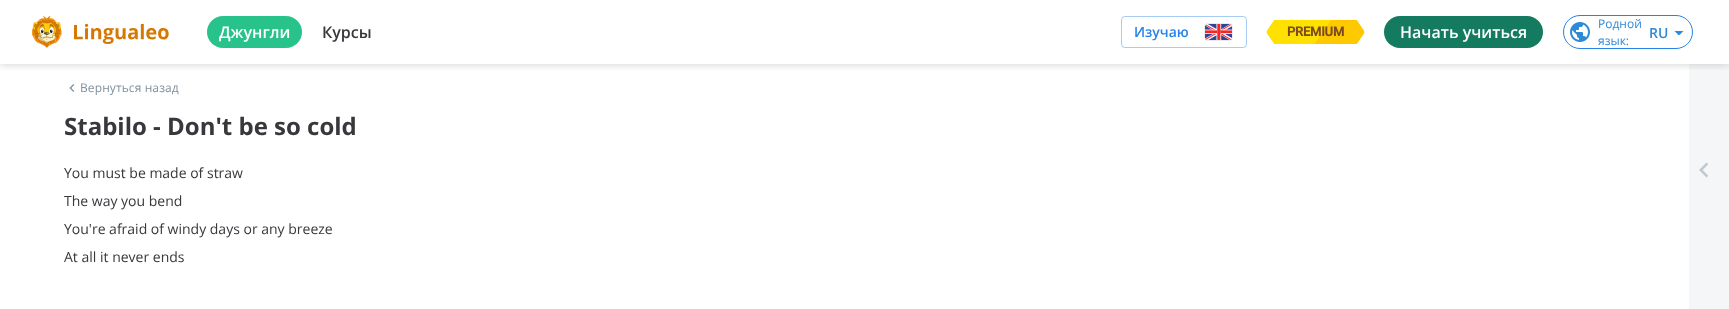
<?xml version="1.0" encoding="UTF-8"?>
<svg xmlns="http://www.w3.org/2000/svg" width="1729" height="309">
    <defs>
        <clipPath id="clip1"><rect x="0" y="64" width="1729" height="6"/></clipPath>
        <filter id="blur1" x="-50%" y="-200%" width="200%" height="500%"><feGaussianBlur stdDeviation="5"/></filter>
        <clipPath id="clip2"><rect x="1674" y="31" width="10" height="4"/></clipPath>
    </defs>
    <rect width="100%" height="100%" fill="#FFFFFF"/>
    <rect x="1689" y="64" width="40" height="245" fill="#F5F6F7"/>
    <g clip-path="url(#clip1)">
        <rect x="0" y="0" width="1729" height="64" fill="#000000" fill-opacity="0.2" filter="url(#blur1)"/>
    </g>
    <image x="32" y="16" width="137" height="32" href="img_01.png"/>
    <rect x="207" y="16" width="95" height="32" rx="16" fill="#28C38A"/>
    <text x="219" y="38" font-family="Open Sans" font-size="16" font-weight="600" fill="#FFFFFF">Джунгли</text>
    <text x="322" y="38" font-family="Open Sans" font-size="16" font-weight="600" fill="#37383C">Курсы</text>
    <rect x="1121.5" y="16.5" width="125" height="31" rx="3.5" fill="none" stroke="#A8CDF5"/>
    <text x="1134" y="37" font-family="Open Sans" font-size="14" font-weight="600" fill="#2582E7">Изучаю</text>
    <image x="1204" y="23" width="29" height="18" href="img_02.png"/>
    <image x="1266" y="20" width="99" height="24" href="img_03.png"/>
    <text x="1287" y="36" font-family="Roboto" font-size="13" font-weight="700" letter-spacing="-0.25" fill="#7A4C20">PREMIUM</text>
    <rect x="1384" y="16" width="159" height="32" rx="16" fill="#157B60"/>
    <text x="1400" y="38" font-family="Open Sans" font-size="16" font-weight="600" fill="#FFFFFF">Начать учиться</text>
    <rect x="1563.5" y="15.5" width="129" height="33" rx="16.5" fill="none" stroke="#2582E7"/>
    <image x="1570" y="22" width="20" height="20" href="img_04.png"/>
    <text font-family="Open Sans" font-size="12" fill="#2E89D6">
        <tspan x="1598" y="28">Родной</tspan>
        <tspan x="1598" y="45">язык:</tspan>
    </text>
    <text x="1649" y="38" font-family="Open Sans" font-size="14" font-weight="600" fill="#2E89D6">RU</text>
    <g clip-path="url(#clip2)">
        <path d="M 1674 30.5 L 1679 35.5 L 1684 30.5 Z" fill="#2E89D6" fill-rule="evenodd"/>
    </g>
    <image x="69" y="84" width="6" height="8" href="img_05.png"/>
    <text x="80" y="92" font-family="Open Sans" font-size="12" letter-spacing="0.1" fill="#7E919F">Вернуться назад</text>
    <image x="1699" y="162" width="9" height="16" href="img_06.png"/>
    <text x="64" y="135" font-family="Open Sans" font-size="24" font-weight="700" fill="#37383C">Stabilo - Don't be so cold</text>
    <text x="64" y="178" font-family="Open Sans" font-size="14" fill="#37383C">You must be made of straw</text>
    <text x="64" y="206" font-family="Open Sans" font-size="14" fill="#37383C">The way you bend</text>
    <text x="64" y="234" font-family="Open Sans" font-size="14" fill="#37383C">You're afraid of windy days or any breeze</text>
    <text x="64" y="262" font-family="Open Sans" font-size="14" fill="#37383C">At all it never ends</text>
</svg>
